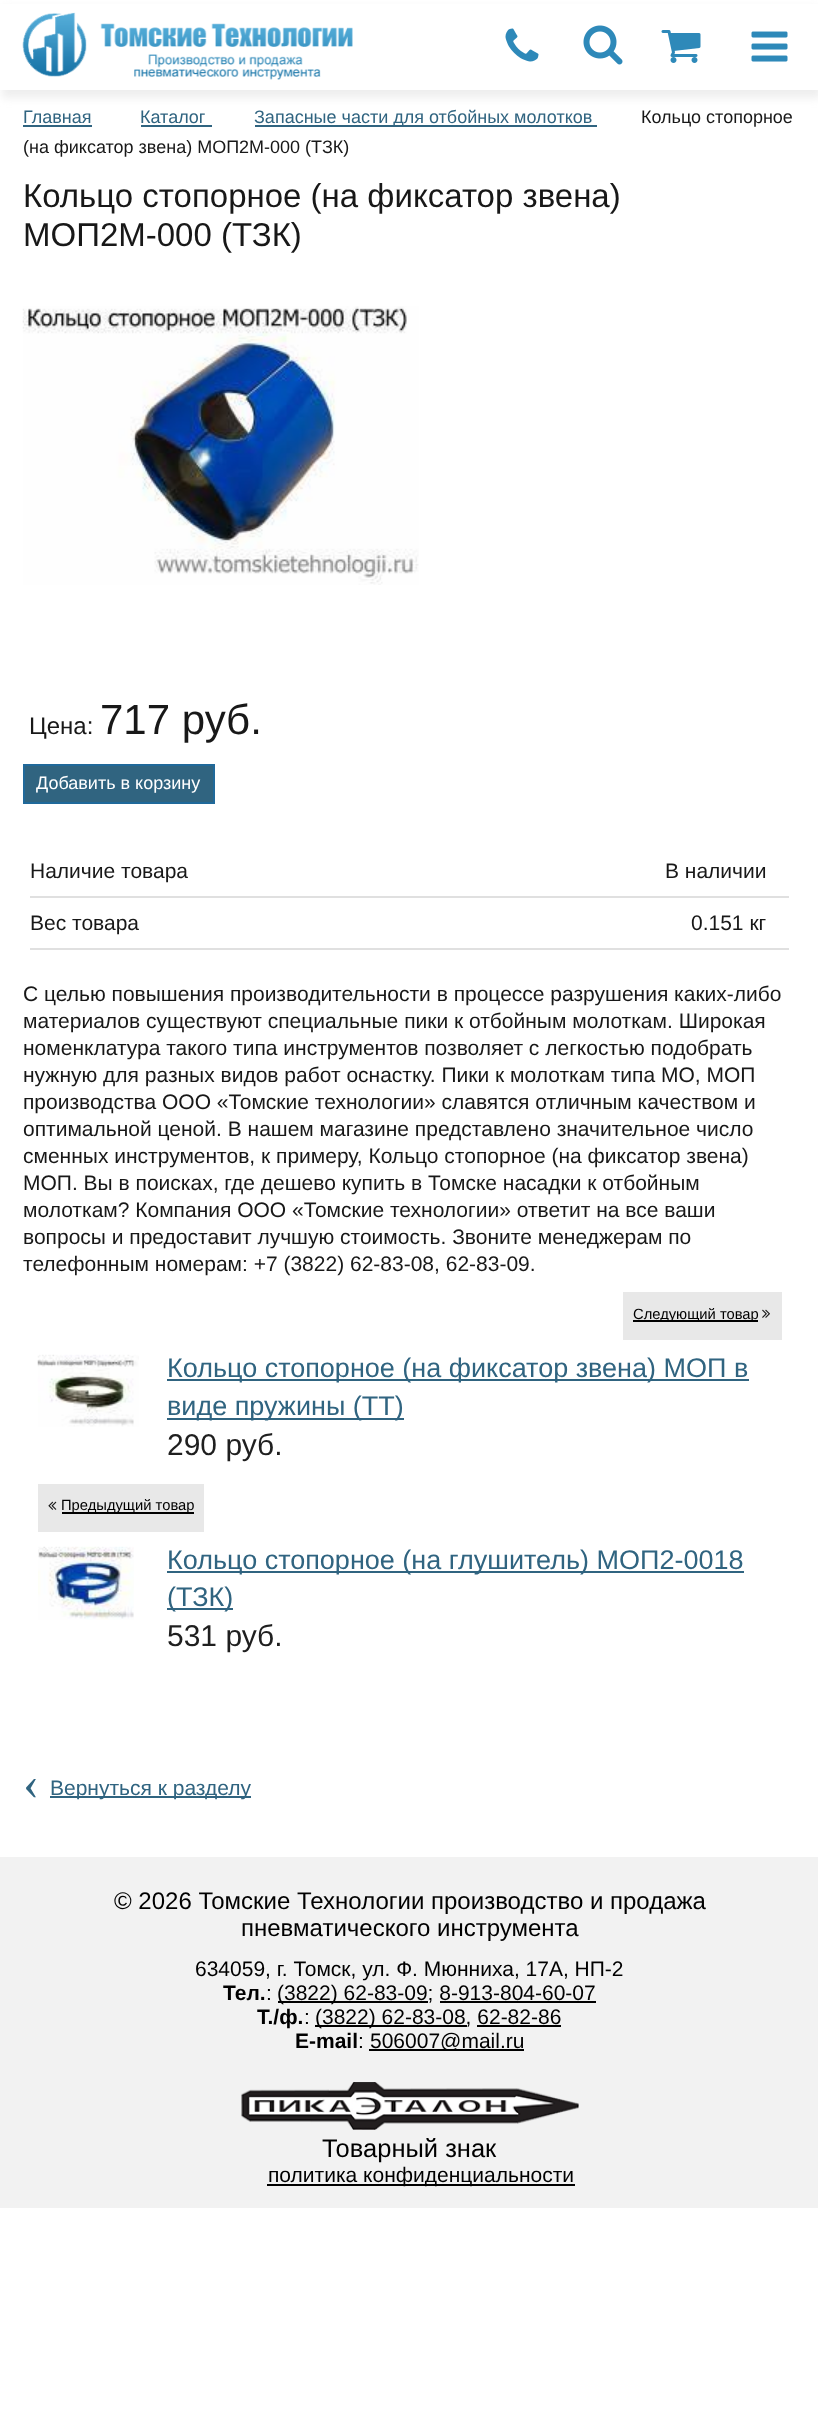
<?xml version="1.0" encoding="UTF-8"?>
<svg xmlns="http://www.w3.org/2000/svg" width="818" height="2415">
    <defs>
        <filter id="blur1" x="-50%" y="-200%" width="200%" height="500%"><feGaussianBlur stdDeviation="4"/></filter>
    </defs>
    <rect width="100%" height="100%" fill="#FFFFFF"/>
    <rect x="2" y="8" width="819" height="90" fill="#EEEEEE" filter="url(#blur1)"/>
    <rect x="0" y="4" width="818" height="86" fill="#FFFFFF"/>
    <image x="22" y="12" width="331" height="68" href="img_01.png"/>
    <image x="505" y="28" width="34" height="34" href="img_02.png"/>
    <image x="583" y="25" width="40" height="40" href="img_03.png"/>
    <image x="661" y="30" width="40" height="33" href="img_04.png"/>
    <image x="751" y="31" width="37" height="31" href="img_05.png"/>
    <text x="23" y="123" font-family="Liberation Sans" font-size="18" fill="#306480">Главная</text>
    <rect x="23" y="125" width="69" height="2" fill="#306480"/>
    <text x="140" y="123" font-family="Liberation Sans" font-size="18" fill="#306480">Каталог</text>
    <rect x="141" y="125" width="71" height="2" fill="#306480"/>
    <rect x="255" y="125" width="342" height="2" fill="#306480"/>
    <text x="254" y="123" font-family="Liberation Sans" font-size="18" fill="#306480">Запасные части для отбойных молотков</text>
    <text x="641" y="123" font-family="Liberation Sans" font-size="18" fill="#181818">Кольцо стопорное</text>
    <text x="23" y="153" font-family="Liberation Sans" font-size="18" fill="#181818">(на фиксатор звена) МОП2М-000 (ТЗК)</text>
    <text font-family="Liberation Sans" font-size="33" fill="#181818">
        <tspan x="23" y="207">Кольцо стопорное (на фиксатор звена)</tspan>
        <tspan x="23" y="246">МОП2М-000 (ТЗК)</tspan>
    </text>
    <image x="22" y="306" width="397" height="279" href="img_06.png"/>
    <text x="29" y="734" font-family="Liberation Sans" font-size="24" fill="#181818">Цена:</text>
    <text x="100" y="734" font-family="Liberation Sans" font-size="42" fill="#181818">717 руб.</text>
    <rect x="24" y="765" width="190" height="38" fill="#306480" stroke="#20699A" stroke-width="2"/>
    <text x="36" y="789" font-family="Liberation Sans" font-size="18" fill="#FFFFFF">Добавить в корзину</text>
    <text x="30" y="878" font-family="Liberation Sans" font-size="21" fill="#181818">Наличие товара</text>
    <rect x="30" y="896" width="759" height="2" fill="#E0E0E0"/>
    <text x="665" y="878" font-family="Liberation Sans" font-size="21" fill="#181818">В наличии</text>
    <text x="30" y="930" font-family="Liberation Sans" font-size="21" fill="#181818">Вес товара</text>
    <rect x="30" y="948" width="759" height="2" fill="#E0E0E0"/>
    <text x="691" y="930" font-family="Liberation Sans" font-size="21" fill="#181818">0.151 кг</text>
    <text font-family="Liberation Sans" font-size="21" fill="#181818">
        <tspan x="23" y="1001">С целью повышения производительности в процессе разрушения каких-либо</tspan>
        <tspan x="23" y="1028">материалов существуют специальные пики к отбойным молоткам. Широкая</tspan>
        <tspan x="23" y="1055">номенклатура такого типа инструментов позволяет с легкостью подобрать</tspan>
        <tspan x="23" y="1082">нужную для разных видов работ оснастку. Пики к молоткам типа МО, МОП</tspan>
        <tspan x="23" y="1109">производства ООО «Томские технологии» славятся отличным качеством и</tspan>
        <tspan x="23" y="1136">оптимальной ценой. В нашем магазине представлено значительное число</tspan>
        <tspan x="23" y="1163">сменных инструментов, к примеру, Кольцо стопорное (на фиксатор звена)</tspan>
        <tspan x="23" y="1190">МОП. Вы в поисках, где дешево купить в Томске насадки к отбойным</tspan>
        <tspan x="23" y="1217">молоткам? Компания ООО «Томские технологии» ответит на все ваши</tspan>
        <tspan x="23" y="1244">вопросы и предоставит лучшую стоимость. Звоните менеджерам по</tspan>
        <tspan x="23" y="1271">телефонным номерам: +7 (3822) 62-83-08, 62-83-09.</tspan>
    </text>
    <rect x="623" y="1292" width="159" height="48" fill="#E8E8E8"/>
    <rect x="633" y="1320" width="125" height="2" fill="#000000"/>
    <text x="633" y="1319" font-family="Liberation Sans" font-size="14.75" fill="#000000">Следующий товар</text>
    <image x="762" y="1309" width="8" height="9" href="img_07.png"/>
    <image x="37" y="1354" width="102" height="73" href="img_08.png"/>
    <rect x="167" y="1379" width="582" height="2" fill="#306480"/>
    <text x="167" y="1377" font-family="Liberation Sans" font-size="27" fill="#306480">Кольцо стопорное (на фиксатор звена) МОП в</text>
    <rect x="167" y="1418" width="237" height="2" fill="#306480"/>
    <text x="167" y="1415" font-family="Liberation Sans" font-size="27" fill="#306480">виде пружины (ТТ)</text>
    <text x="167" y="1455" font-family="Liberation Sans" font-size="30" fill="#1F1F1F">290 руб.</text>
    <rect x="38" y="1484" width="166" height="48" fill="#E8E8E8"/>
    <image x="48" y="1501" width="9" height="9" href="img_09.png"/>
    <rect x="62" y="1512" width="132" height="2" fill="#000000"/>
    <text x="61" y="1510" font-family="Liberation Sans" font-size="14.75" fill="#000000">Предыдущий товар</text>
    <image x="38" y="1546" width="96" height="74" href="img_10.png"/>
    <rect x="167" y="1571" width="577" height="2" fill="#306480"/>
    <text x="167" y="1569" font-family="Liberation Sans" font-size="27" fill="#306480">Кольцо стопорное (на глушитель) МОП2-0018</text>
    <rect x="167" y="1608" width="66" height="2" fill="#306480"/>
    <text x="167" y="1606" font-family="Liberation Sans" font-size="27" fill="#306480">(ТЗК)</text>
    <text x="167" y="1646" font-family="Liberation Sans" font-size="30" fill="#1F1F1F">531 руб.</text>
    <text x="23" y="1799" font-family="Liberation Serif" font-size="48" fill="#306480">‹</text>
    <rect x="50" y="1796" width="201" height="2" fill="#306480"/>
    <text x="50" y="1795" font-family="Liberation Sans" font-size="21" fill="#306480">Вернуться к разделу</text>
    <rect x="0" y="1857" width="818" height="351" fill="#F2F2F2"/>
    <text x="114" y="1909" font-family="Liberation Sans" font-size="24" fill="#000000">© 2026 Томские Технологии производство и продажа</text>
    <text x="241" y="1936" font-family="Liberation Sans" font-size="24" fill="#000000">пневматического инструмента</text>
    <text x="195" y="1976" font-family="Liberation Sans" font-size="21" fill="#000000">634059, г. Томск, ул. Ф. Мюнниха, 17А, НП-2</text>
    <text x="223" y="2000" font-family="Liberation Sans" font-size="21" font-weight="700" fill="#000000">Тел.</text>
    <text x="266" y="2000" font-family="Liberation Sans" font-size="21" fill="#000000">:</text>
    <rect x="278" y="2001" width="150" height="2" fill="#000000"/>
    <text x="277" y="2000" font-family="Liberation Sans" font-size="21" fill="#000000">(3822) 62-83-09; 8-913-804-60-07</text>
    <rect x="440" y="2001" width="156" height="2" fill="#000000"/>
    <text x="257" y="2024" font-family="Liberation Sans" font-size="21" font-weight="700" fill="#000000">Т./ф.</text>
    <text x="304" y="2024" font-family="Liberation Sans" font-size="21" fill="#000000">:</text>
    <rect x="315" y="2025" width="152" height="2" fill="#000000"/>
    <text x="315" y="2024" font-family="Liberation Sans" font-size="21" fill="#000000">(3822) 62-83-08, 62-82-86</text>
    <rect x="477" y="2025" width="84" height="2" fill="#000000"/>
    <text x="295" y="2048" font-family="Liberation Sans" font-size="21" font-weight="700" fill="#000000">E-mail</text>
    <text x="358" y="2048" font-family="Liberation Sans" font-size="21" fill="#000000">:</text>
    <rect x="369" y="2049" width="155" height="2" fill="#000000"/>
    <text x="370" y="2048" font-family="Liberation Sans" font-size="21" fill="#000000">506007@mail.ru</text>
    <image x="241" y="2082" width="338" height="48" href="img_11.png"/>
    <text x="322" y="2157" font-family="Liberation Sans" font-size="25.5" fill="#000000">Товарный знак</text>
    <rect x="267" y="2184" width="308" height="2" fill="#000000"/>
    <text x="268" y="2182" font-family="Liberation Sans" font-size="21" fill="#000000">политика конфиденциальности</text>
</svg>
